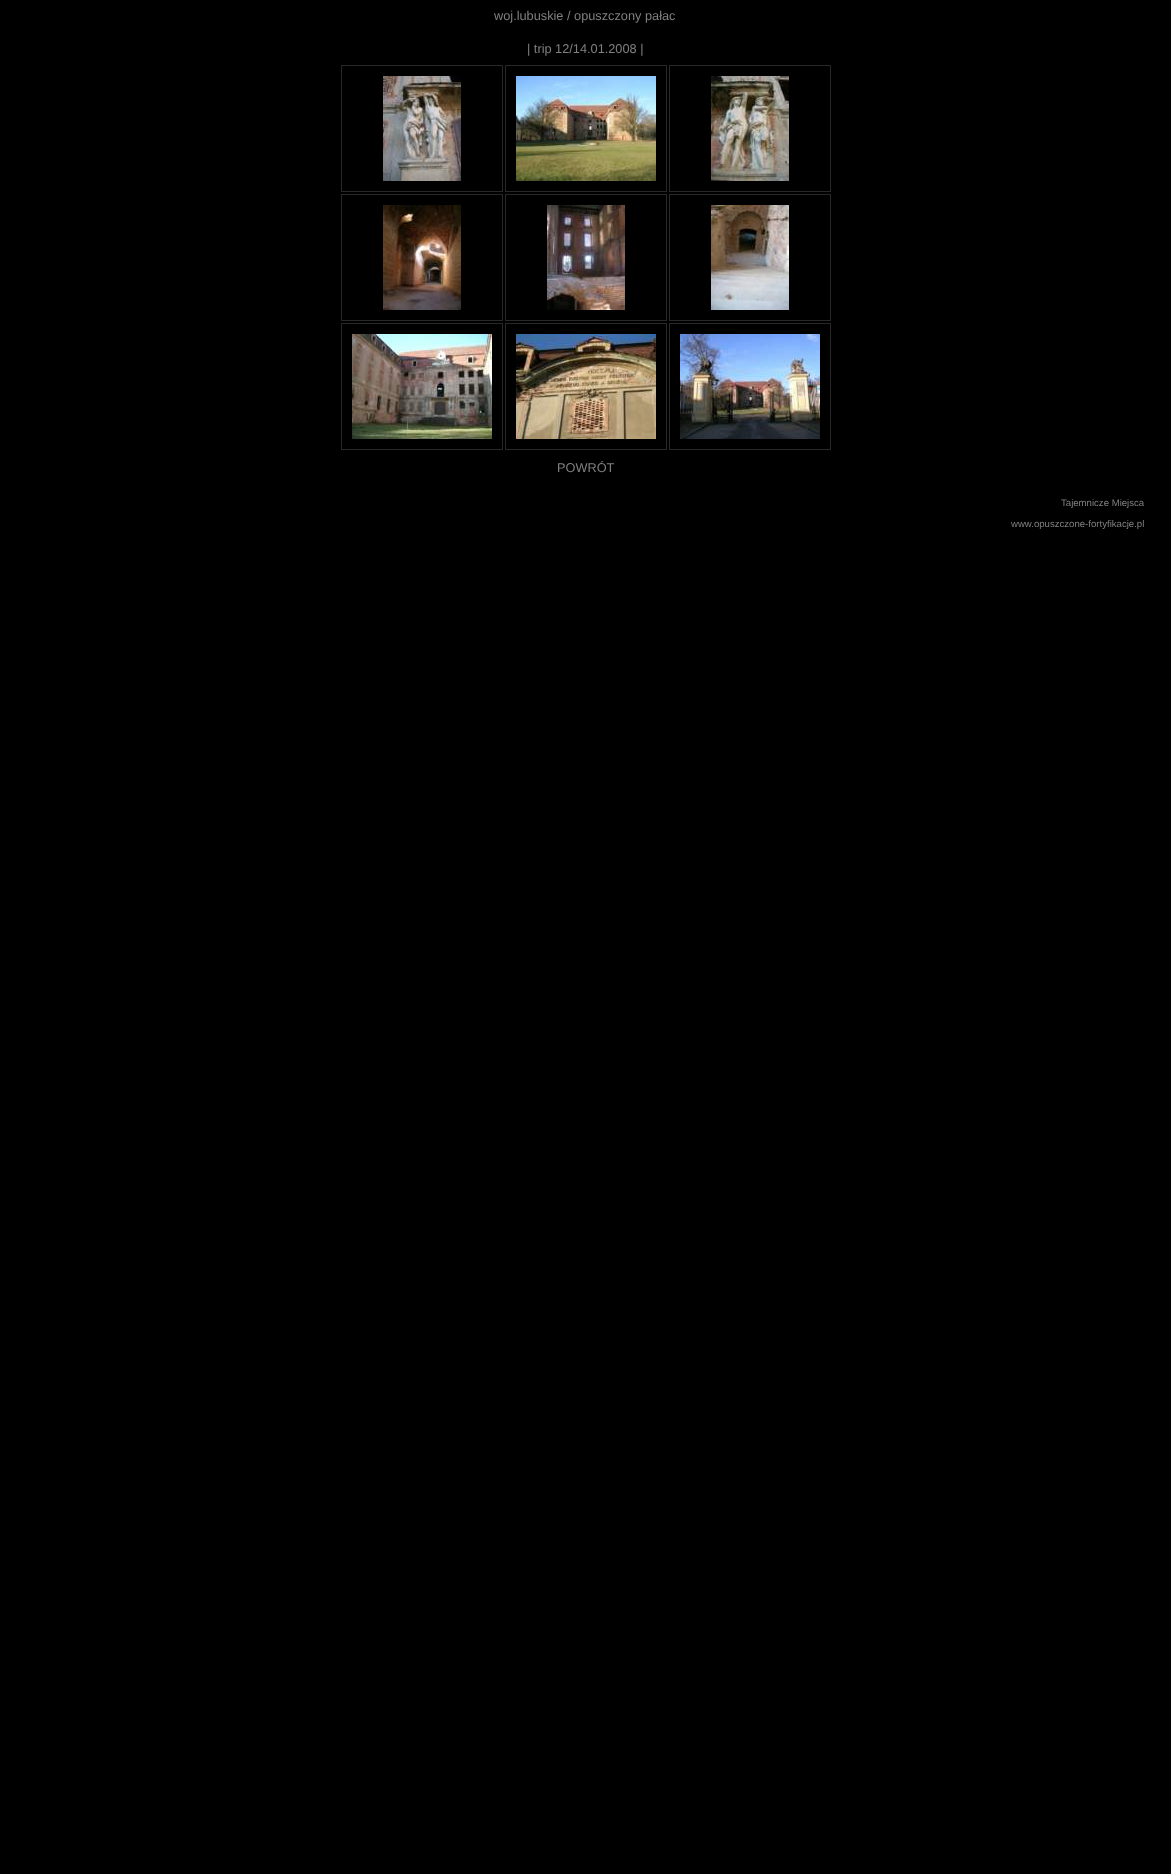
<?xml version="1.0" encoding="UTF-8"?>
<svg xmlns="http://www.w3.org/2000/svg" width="1171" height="1874">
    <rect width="100%" height="100%" fill="#000000"/>
    <text x="494" y="20" font-family="Liberation Sans" font-size="12.75" fill="#808080">woj.lubuskie / opuszczony pałac</text>
    <text x="527" y="53" font-family="Liberation Sans" font-size="12.75" fill="#808080">| trip 12/14.01.2008 |</text>
    <rect x="341.5" y="65.5" width="161" height="126" fill="none" stroke="#282828"/>
    <image x="383" y="76" width="78" height="105" href="img_01.png"/>
    <rect x="505.5" y="65.5" width="161" height="126" fill="none" stroke="#282828"/>
    <image x="516" y="76" width="140" height="105" href="img_02.png"/>
    <rect x="669.5" y="65.5" width="161" height="126" fill="none" stroke="#282828"/>
    <image x="711" y="76" width="78" height="105" href="img_03.png"/>
    <rect x="341.5" y="194.5" width="161" height="126" fill="none" stroke="#282828"/>
    <image x="383" y="205" width="78" height="105" href="img_04.png"/>
    <rect x="505.5" y="194.5" width="161" height="126" fill="none" stroke="#282828"/>
    <image x="547" y="205" width="78" height="105" href="img_05.png"/>
    <rect x="669.5" y="194.5" width="161" height="126" fill="none" stroke="#282828"/>
    <image x="711" y="205" width="78" height="105" href="img_06.png"/>
    <rect x="341.5" y="323.5" width="161" height="126" fill="none" stroke="#282828"/>
    <image x="352" y="334" width="140" height="105" href="img_07.png"/>
    <rect x="505.5" y="323.5" width="161" height="126" fill="none" stroke="#282828"/>
    <image x="516" y="334" width="140" height="105" href="img_08.png"/>
    <rect x="669.5" y="323.5" width="161" height="126" fill="none" stroke="#282828"/>
    <image x="680" y="334" width="140" height="105" href="img_09.png"/>
    <text x="557" y="472" font-family="Liberation Sans" font-size="12.75" fill="#808080">POWRÓT</text>
    <text x="1061" y="506" font-family="Liberation Sans" font-size="9.6" fill="#808080">Tajemnicze Miejsca</text>
    <text x="1011" y="527" font-family="Liberation Sans" font-size="9.6" fill="#808080">www.opuszczone-fortyfikacje.pl</text>
</svg>
